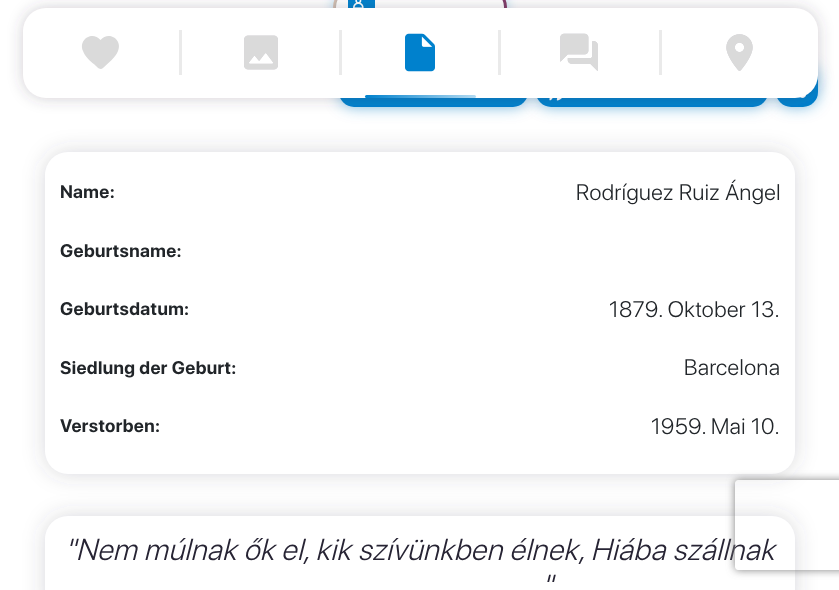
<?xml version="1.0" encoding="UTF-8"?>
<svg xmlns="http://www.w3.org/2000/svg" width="839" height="590">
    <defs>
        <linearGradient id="g1" gradientUnits="userSpaceOnUse" x1="333" y1="6.8" x2="507" y2="6.7"><stop offset="0" stop-color="#F9CBAC"/><stop offset="1" stop-color="#982C53"/></linearGradient>
        <filter id="blur1" x="-50%" y="-200%" width="200%" height="500%"><feGaussianBlur stdDeviation="7.5"/></filter>
        <linearGradient id="g2" gradientUnits="userSpaceOnUse" x1="365" y1="96" x2="476" y2="96"><stop offset="0" stop-color="#0081CD"/><stop offset="1" stop-color="#B3DAF1"/></linearGradient>
        <filter id="blur2" x="-50%" y="-200%" width="200%" height="500%"><feGaussianBlur stdDeviation="11"/></filter>
        <clipPath id="clip1"><path d="M 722 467 H 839 V 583 H 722 Z M 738 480 H 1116 C 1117.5 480 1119 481.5 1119 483 V 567 C 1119 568.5 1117.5 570 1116 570 H 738 C 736.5 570 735 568.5 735 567 V 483 C 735 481.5 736.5 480 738 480 Z" clip-rule="evenodd"/></clipPath>
        <filter id="blur3" x="-50%" y="-200%" width="200%" height="500%"><feGaussianBlur stdDeviation="4"/></filter>
    </defs>
    <rect width="100%" height="100%" fill="#FFFFFF"/>
    <rect x="333" y="-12" width="174" height="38" rx="19" fill="url(#g1)"/>
    <rect x="336" y="-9" width="168" height="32" rx="16" fill="#0081CD" fill-opacity="0.5" filter="url(#blur1)"/>
    <rect x="336" y="-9" width="168" height="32" rx="16" fill="#FFFFFF"/>
    <image x="348" y="0" width="27" height="8" href="img_01.png"/>
    <rect x="339" y="65" width="189" height="42" rx="15" fill="#0081CD" fill-opacity="0.5" filter="url(#blur1)"/>
    <rect x="339" y="65" width="189" height="42" rx="15" fill="#0081CD"/>
    <rect x="536" y="65" width="232" height="42" rx="15" fill="#0081CD" fill-opacity="0.5" filter="url(#blur1)"/>
    <rect x="536" y="65" width="232" height="42" rx="15" fill="#0081CD"/>
    <image x="549" y="98" width="13" height="3" href="img_09.png"/>
    <rect x="776" y="65" width="42" height="42" rx="15" fill="#0081CD" fill-opacity="0.5" filter="url(#blur1)"/>
    <rect x="776" y="65" width="42" height="42" rx="15" fill="#0081CD"/>
    <image x="800" y="94" width="7" height="4" href="img_10.png"/>
    <rect x="23" y="8" width="795" height="90" rx="23" fill="#434150" fill-opacity="0.25" filter="url(#blur1)"/>
    <rect x="23" y="8" width="795" height="90" rx="23" fill="#FFFFFF"/>
    <rect x="179" y="30" width="3" height="45" fill="#EAEAEA"/>
    <path d="M 103 68 C 100 71 96.5 66.5 94.5 64.5 C 90 61 85 56.5 83 51 C 78 39.5 92.5 30.5 100.5 40 C 108.5 30.5 123 39.5 118 51 C 115.5 57.5 108 63.5 103 68 Z" fill="#DADADA"/>
    <rect x="339" y="30" width="3" height="45" fill="#EAEAEA"/>
    <image x="244" y="35" width="34" height="35" href="img_02.png"/>
    <image x="244" y="35" width="34" height="35" href="img_03.png"/>
    <rect x="498" y="30" width="3" height="45" fill="#EAEAEA"/>
    <image x="405" y="33" width="30" height="39" href="img_04.png"/>
    <rect x="365" y="95" width="111" height="3" rx="1.5" fill="url(#g2)"/>
    <rect x="659" y="30" width="3" height="45" fill="#EAEAEA"/>
    <image x="560" y="33" width="38" height="38" href="img_05.png"/>
    <image x="560" y="33" width="38" height="38" href="img_06.png"/>
    <image x="726" y="34" width="27" height="37" href="img_07.png"/>
    <image x="726" y="34" width="27" height="37" href="img_08.png"/>
    <rect x="45" y="152" width="750" height="322" rx="23" fill="#434150" fill-opacity="0.2" filter="url(#blur2)"/>
    <rect x="45" y="152" width="750" height="322" rx="23" fill="#FFFFFF"/>
    <text x="60" y="198" font-family="SF Pro Display" font-size="18" font-weight="700" letter-spacing="0.4" fill="#212529">Name:</text>
    <text x="576" y="200" font-family="SF Pro Display" font-size="22.5" font-weight="300" letter-spacing="0.5" fill="#212529">Rodríguez Ruiz Ángel</text>
    <text x="60" y="257" font-family="SF Pro Display" font-size="18" font-weight="700" letter-spacing="0.4" fill="#212529">Geburtsname:</text>
    <text x="60" y="315" font-family="SF Pro Display" font-size="18" font-weight="700" letter-spacing="0.4" fill="#212529">Geburtsdatum:</text>
    <text x="609" y="317" font-family="SF Pro Display" font-size="22.5" font-weight="300" letter-spacing="0.5" fill="#212529">1879. Oktober 13.</text>
    <text x="60" y="374" font-family="SF Pro Display" font-size="18" font-weight="700" letter-spacing="0.4" fill="#212529">Siedlung der Geburt:</text>
    <text x="684" y="375" font-family="SF Pro Display" font-size="22.5" font-weight="300" letter-spacing="0.5" fill="#212529">Barcelona</text>
    <text x="60" y="432" font-family="SF Pro Display" font-size="18" font-weight="700" letter-spacing="0.4" fill="#212529">Verstorben:</text>
    <text x="651" y="434" font-family="SF Pro Display" font-size="22.5" font-weight="300" letter-spacing="0.5" fill="#212529">1959. Mai 10.</text>
    <rect x="45" y="516" width="750" height="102" rx="23" fill="#434150" fill-opacity="0.2" filter="url(#blur2)"/>
    <rect x="45" y="516" width="750" height="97" rx="23" fill="#FFFFFF"/>
    <text x="65" y="560" font-family="SF Pro Display" font-size="30" font-weight="300" font-style="italic" letter-spacing="0.6" fill="#272434">"Nem múlnak ők el, kik szívünkben élnek, Hiába szállnak</text>
    <text x="542" y="596" font-family="SF Pro Display" font-size="30" font-weight="300" font-style="italic" letter-spacing="0.6" fill="#272434">"</text>
    <g clip-path="url(#clip1)">
        <rect x="735" y="480" width="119" height="90" rx="3" fill="#808080" filter="url(#blur3)"/>
    </g>
</svg>
